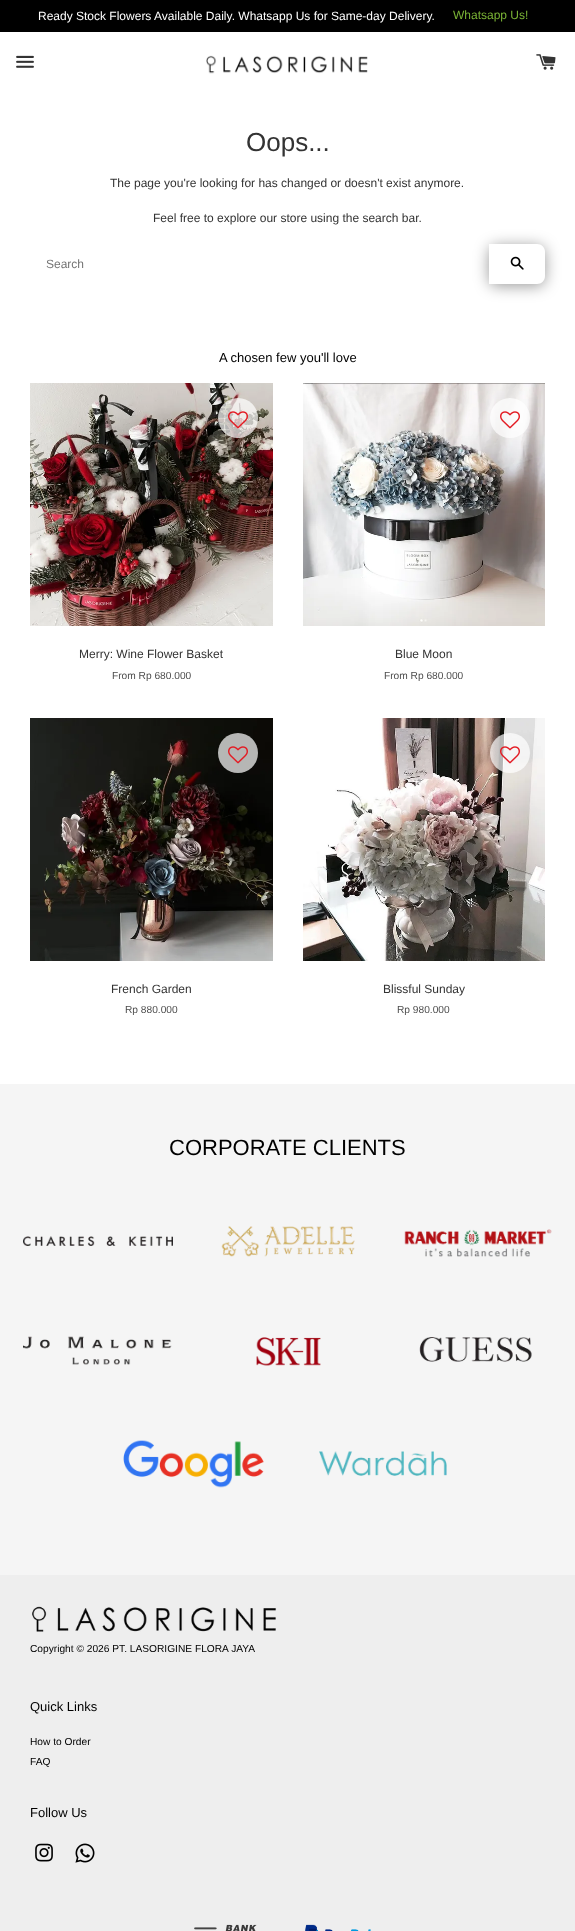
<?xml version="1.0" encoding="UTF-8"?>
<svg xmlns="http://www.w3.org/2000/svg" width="575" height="1931">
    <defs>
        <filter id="blur1" x="-50%" y="-200%" width="200%" height="500%"><feGaussianBlur stdDeviation="7.5"/></filter>
    </defs>
    <rect width="100%" height="100%" fill="#FFFFFF"/>
    <rect x="0" y="0" width="575" height="32" fill="#000000"/>
    <text x="38" y="20" font-family="Liberation Sans" font-size="12" fill="#FFFFFF">Ready Stock Flowers Available Daily. Whatsapp Us for Same-day Delivery.</text>
    <text x="453" y="19" font-family="Liberation Sans" font-size="12" fill="#7AB335">Whatsapp Us!</text>
    <image x="16" y="55" width="18" height="13" href="img_01.png"/>
    <image x="206" y="55" width="162" height="19" href="img_02.png"/>
    <image x="536" y="54" width="20" height="16" href="img_03.png"/>
    <text x="246" y="151" font-family="Liberation Sans" font-size="26" fill="#333333">Oops...</text>
    <text x="110" y="187" font-family="Liberation Sans" font-size="12" fill="#333333">The page you're looking for has changed or doesn't exist anymore.</text>
    <text x="153" y="222" font-family="Liberation Sans" font-size="12" fill="#333333">Feel free to explore our store using the search bar.</text>
    <text x="46" y="268" font-family="Liberation Sans" font-size="12" fill="#757575">Search</text>
    <rect x="489" y="246" width="56" height="40" rx="8" fill="#000000" fill-opacity="0.4" filter="url(#blur1)"/>
    <path d="M 489 244 H 537 C 541.5 244 545 247.5 545 252 V 276 C 545 280.5 541.5 284 537 284 H 489 Z" fill="#FFFFFF"/>
    <image x="510" y="256" width="14" height="14" href="img_04.png"/>
    <text x="219" y="362" font-family="Liberation Sans" font-size="13" fill="#000000">A chosen few you'll love</text>
    <image x="30" y="383" width="243" height="243" href="img_05.png"/>
    <circle cx="238" cy="418" r="20" fill="#FFFFFF" fill-opacity="0.7"/>
    <image x="228" y="411" width="20" height="18" href="img_06.png"/>
    <text x="79" y="658" font-family="Liberation Sans" font-size="12" fill="#333333">Merry: Wine Flower Basket</text>
    <text x="112" y="679" font-family="Liberation Sans" font-size="10.2" fill="#4D4D4D">From Rp 680.000</text>
    <image x="303" y="383" width="242" height="243" href="img_07.png"/>
    <circle cx="510" cy="418" r="20" fill="#FFFFFF" fill-opacity="0.7"/>
    <image x="500" y="411" width="20" height="18" href="img_08.png"/>
    <text x="395" y="658" font-family="Liberation Sans" font-size="12" fill="#333333">Blue Moon</text>
    <text x="384" y="679" font-family="Liberation Sans" font-size="10.2" fill="#4D4D4D">From Rp 680.000</text>
    <image x="30" y="718" width="243" height="243" href="img_09.png"/>
    <circle cx="238" cy="753" r="20" fill="#FFFFFF" fill-opacity="0.7"/>
    <image x="228" y="746" width="20" height="18" href="img_10.png"/>
    <text x="111" y="993" font-family="Liberation Sans" font-size="12" fill="#333333">French Garden</text>
    <text x="125" y="1013" font-family="Liberation Sans" font-size="10.2" fill="#4D4D4D">Rp 880.000</text>
    <image x="303" y="718" width="242" height="243" href="img_11.png"/>
    <circle cx="510" cy="753" r="20" fill="#FFFFFF" fill-opacity="0.7"/>
    <image x="500" y="746" width="20" height="18" href="img_12.png"/>
    <text x="383" y="993" font-family="Liberation Sans" font-size="12" fill="#333333">Blissful Sunday</text>
    <text x="397" y="1013" font-family="Liberation Sans" font-size="10.2" fill="#4D4D4D">Rp 980.000</text>
    <rect x="0" y="1575" width="575" height="356" fill="#EEEEEE"/>
    <rect x="0" y="1084" width="575" height="491" fill="#F5F5F5"/>
    <text x="169" y="1155" font-family="Liberation Sans" font-size="22" fill="#000000">CORPORATE CLIENTS</text>
    <image x="23" y="1236" width="150" height="10" href="img_13.png"/>
    <image x="221" y="1226" width="134" height="31" href="img_14.png"/>
    <image x="404" y="1229" width="148" height="28" href="img_15.png"/>
    <image x="23" y="1336" width="149" height="29" href="img_16.png"/>
    <image x="256" y="1337" width="65" height="29" href="img_17.png"/>
    <image x="419" y="1337" width="113" height="25" href="img_18.png"/>
    <image x="123" y="1440" width="141" height="48" href="img_19.png"/>
    <image x="319" y="1451" width="128" height="25" href="img_20.png"/>
    <image x="32" y="1606" width="245" height="26" href="img_21.png"/>
    <text x="30" y="1652" font-family="Liberation Sans" font-size="10.2" fill="#000000">Copyright © 2026 PT. LASORIGINE FLORA JAYA</text>
    <text x="30" y="1711" font-family="Liberation Sans" font-size="13" fill="#000000">Quick Links</text>
    <text font-family="Liberation Sans" font-size="10.2" fill="#000000">
        <tspan x="30" y="1745">How to Order</tspan>
        <tspan x="30" y="1765">FAQ</tspan>
    </text>
    <text x="30" y="1817" font-family="Liberation Sans" font-size="13" fill="#000000">Follow Us</text>
    <image x="35" y="1843" width="18" height="19" href="img_22.png"/>
    <image x="75" y="1843" width="20" height="20" href="img_23.png"/>
    <image x="194" y="1924" width="63" height="7" href="img_24.png"/>
    <image x="305" y="1924" width="66" height="7" href="img_25.png"/>
</svg>
